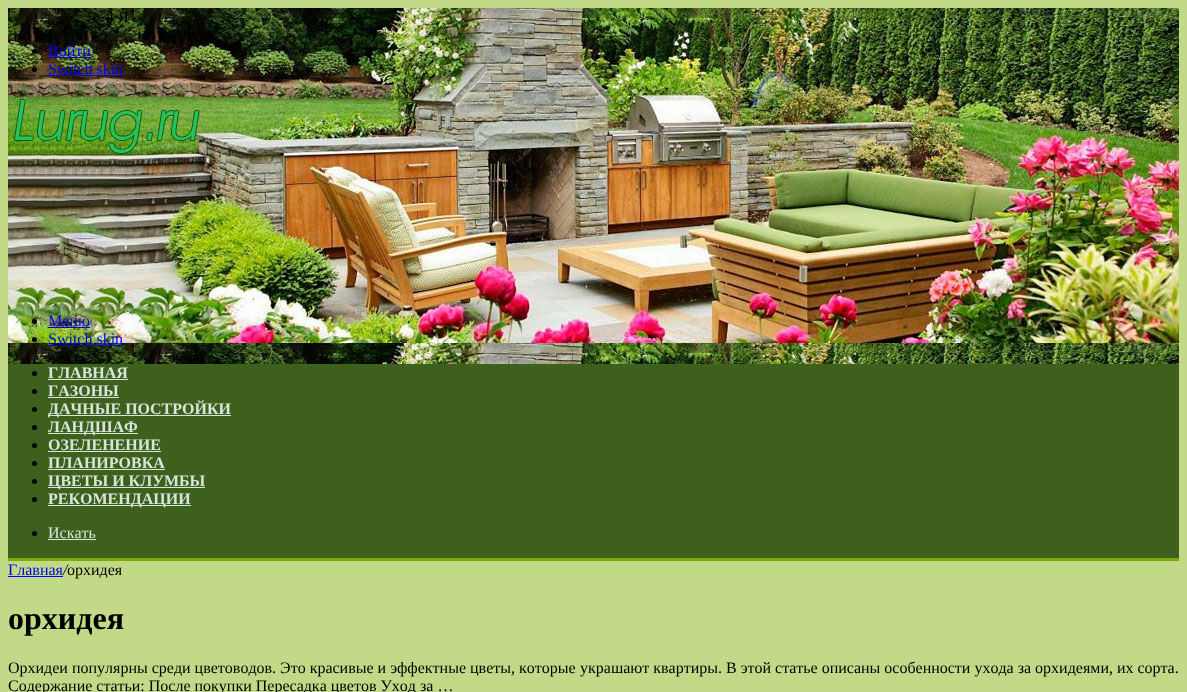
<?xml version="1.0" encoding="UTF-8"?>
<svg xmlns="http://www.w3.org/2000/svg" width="1187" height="692">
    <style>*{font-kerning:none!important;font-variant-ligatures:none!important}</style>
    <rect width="100%" height="100%" fill="#C2D987"/>
    <image x="8" y="8" width="1171" height="356" href="img_01.png"/>
    <text x="106" y="22" font-family="Liberation Serif" font-size="16" fill="#000000">4 Я</text>
    <circle cx="34.5" cy="51.5" r="2.5" fill="#000000"/>
    <text x="48" y="56" font-family="Liberation Serif" font-size="16" fill="#0000EE">Войти</text>
    <rect x="48" y="57" width="43" height="1" fill="#0000EE"/>
    <circle cx="34.5" cy="69.5" r="2.5" fill="#000000"/>
    <text x="48" y="74" font-family="Liberation Serif" font-size="16" fill="#0000EE">Switch skin</text>
    <rect x="48" y="75" width="75" height="1" fill="#0000EE"/>
    <image x="10" y="96" width="201" height="58" href="img_02.png"/>
    <circle cx="34.5" cy="321.5" r="2.5" fill="#000000"/>
    <text x="48" y="326" font-family="Liberation Serif" font-size="16" fill="#0000EE">Меню</text>
    <rect x="48" y="327" width="42" height="1" fill="#0000EE"/>
    <circle cx="34.5" cy="339.5" r="2.5" fill="#000000"/>
    <text x="48" y="344" font-family="Liberation Serif" font-size="16" fill="#0000EE">Switch skin</text>
    <rect x="48" y="345" width="75" height="1" fill="#0000EE"/>
    <rect x="8" y="364" width="1171" height="194" fill="#3D601C"/>
    <rect x="8" y="558" width="1171" height="3" fill="#77AD01"/>
    <circle cx="34.5" cy="373.5" r="2.5" fill="#000000"/>
    <text x="48" y="378" font-family="Liberation Serif" font-size="16" font-weight="700" fill="#D7E5DA">ГЛАВНАЯ</text>
    <rect x="48" y="379" width="80" height="1" fill="#D7E5DA"/>
    <circle cx="34.5" cy="391.5" r="2.5" fill="#000000"/>
    <text x="48" y="396" font-family="Liberation Serif" font-size="16" font-weight="700" fill="#D7E5DA">ГАЗОНЫ</text>
    <rect x="48" y="397" width="71" height="1" fill="#D7E5DA"/>
    <circle cx="34.5" cy="409.5" r="2.5" fill="#000000"/>
    <rect x="48" y="415" width="183" height="1" fill="#D7E5DA"/>
    <text x="48" y="414" font-family="Liberation Serif" font-size="16" font-weight="700" fill="#D7E5DA">ДАЧНЫЕ ПОСТРОЙКИ</text>
    <circle cx="34.5" cy="427.5" r="2.5" fill="#000000"/>
    <rect x="48" y="433" width="90" height="1" fill="#D7E5DA"/>
    <text x="48" y="432" font-family="Liberation Serif" font-size="16" font-weight="700" fill="#D7E5DA">ЛАНДШАФ</text>
    <circle cx="34.5" cy="445.5" r="2.5" fill="#000000"/>
    <text x="48" y="450" font-family="Liberation Serif" font-size="16" font-weight="700" fill="#D7E5DA">ОЗЕЛЕНЕНИЕ</text>
    <rect x="48" y="451" width="113" height="1" fill="#D7E5DA"/>
    <circle cx="34.5" cy="463.5" r="2.5" fill="#000000"/>
    <text x="48" y="468" font-family="Liberation Serif" font-size="16" font-weight="700" fill="#D7E5DA">ПЛАНИРОВКА</text>
    <rect x="48" y="469" width="117" height="1" fill="#D7E5DA"/>
    <circle cx="34.5" cy="481.5" r="2.5" fill="#000000"/>
    <rect x="48" y="487" width="157" height="1" fill="#D7E5DA"/>
    <text x="48" y="486" font-family="Liberation Serif" font-size="16" font-weight="700" fill="#D7E5DA">ЦВЕТЫ И КЛУМБЫ</text>
    <circle cx="34.5" cy="499.5" r="2.5" fill="#000000"/>
    <rect x="48" y="505" width="143" height="1" fill="#D7E5DA"/>
    <text x="48" y="504" font-family="Liberation Serif" font-size="16" font-weight="700" fill="#D7E5DA">РЕКОМЕНДАЦИИ</text>
    <circle cx="34.5" cy="533.5" r="2.5" fill="#000000"/>
    <text x="48" y="538" font-family="Liberation Serif" font-size="16" fill="#D7E5DA">Искать</text>
    <rect x="48" y="539" width="48" height="1" fill="#D7E5DA"/>
    <text x="8" y="575" font-family="Liberation Serif" font-size="16" fill="#0000EE">Главная</text>
    <rect x="8" y="576" width="55" height="1" fill="#0000EE"/>
    <text x="63" y="575" font-family="Liberation Serif" font-size="16" font-style="italic" fill="#000000">/</text>
    <text x="67" y="575" font-family="Liberation Serif" font-size="16" fill="#000000">орхидея</text>
    <text x="8" y="629" font-family="Liberation Serif" font-size="32" font-weight="700" fill="#000000">орхидея</text>
    <text x="8" y="673" font-family="Liberation Serif" font-size="16" fill="#000000">Орхидеи популярны среди цветоводов. Это красивые и эффектные цветы, которые</text>
    <text x="580" y="673" font-family="Liberation Serif" font-size="16" fill="#000000">украшают квартиры. В этой статье описаны особенности ухода за орхидеями, их сорта.</text>
    <text x="8" y="691" font-family="Liberation Serif" font-size="16" fill="#000000">Содержание статьи: После покупки Пересадка цветов Уход за …</text>
</svg>
